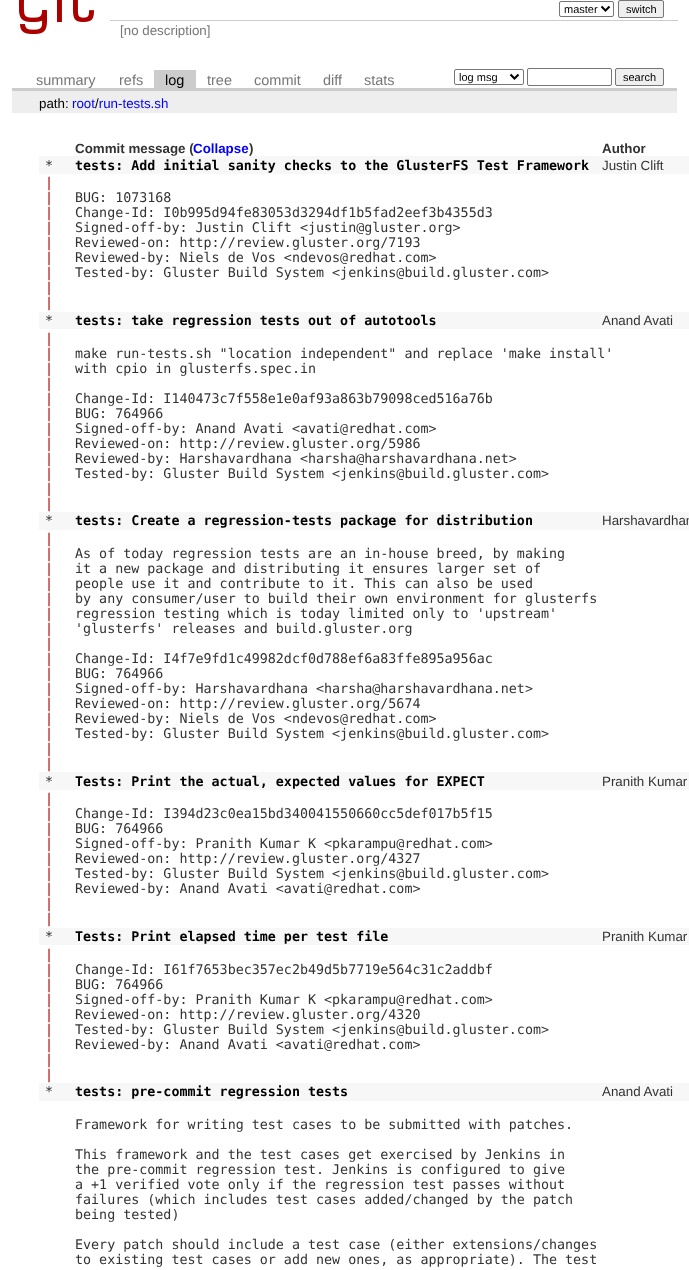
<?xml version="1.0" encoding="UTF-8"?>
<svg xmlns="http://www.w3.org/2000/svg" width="689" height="1270">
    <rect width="100%" height="100%" fill="#FFFFFF"/>
    <image x="19" y="0" width="75" height="34" href="img_01.png"/>
    <rect x="559.5" y="1.5" width="54" height="15" rx="1.5" fill="none" stroke="#767676"/>
    <path d="M 601.5 6.5 L 605.5 10.5 L 609.5 6.5" fill="none" stroke="#000000" stroke-width="2"/>
    <text x="564" y="13" font-family="Liberation Sans" font-size="11" fill="#000000">master</text>
    <rect x="618.5" y="0.5" width="45" height="17" rx="1.5" fill="#EFEFEF" stroke="#767676"/>
    <text x="626" y="13" font-family="Liberation Sans" font-size="11" fill="#000000">switch</text>
    <rect x="110" y="20" width="568" height="1" fill="#CCCCCC"/>
    <text x="120" y="35" font-family="Liberation Sans" font-size="13.35" fill="#777777">[no description]</text>
    <rect x="12" y="88" width="665" height="3" fill="#CCCCCC"/>
    <text x="36" y="85" font-family="Liberation Sans" font-size="14.5" fill="#777777">summary</text>
    <text x="119" y="85" font-family="Liberation Sans" font-size="14.5" fill="#777777">refs</text>
    <rect x="154" y="70" width="42" height="18" fill="#CCCCCC"/>
    <text x="165" y="85" font-family="Liberation Sans" font-size="14.5" fill="#000000">log</text>
    <text x="207" y="85" font-family="Liberation Sans" font-size="14.5" fill="#777777">tree</text>
    <text x="254" y="85" font-family="Liberation Sans" font-size="14.5" fill="#777777">commit</text>
    <text x="323" y="85" font-family="Liberation Sans" font-size="14.5" fill="#777777">diff</text>
    <text x="364" y="85" font-family="Liberation Sans" font-size="14.5" fill="#777777">stats</text>
    <rect x="454.5" y="69.5" width="69" height="15" rx="1.5" fill="none" stroke="#767676"/>
    <path d="M 510.5 74.5 L 514.5 78.5 L 518.5 74.5" fill="none" stroke="#000000" stroke-width="2"/>
    <text x="459" y="81" font-family="Liberation Sans" font-size="11" fill="#000000">log msg</text>
    <rect x="527.5" y="68.5" width="84" height="17" rx="1.5" fill="none" stroke="#767676"/>
    <rect x="615.5" y="68.5" width="48" height="17" rx="1.5" fill="#EFEFEF" stroke="#767676"/>
    <text x="623" y="81" font-family="Liberation Sans" font-size="11" fill="#000000">search</text>
    <rect x="12" y="91" width="665" height="22" fill="#EEEEEE"/>
    <text x="39" y="108" font-family="Liberation Sans" font-size="13.35" fill="#000000">path:</text>
    <text x="72" y="108" font-family="Liberation Sans" font-size="13.35" fill="#0000FF">root run-tests.sh</text>
    <text x="95" y="108" font-family="Liberation Sans" font-size="13.35" fill="#000000">/</text>
    <text x="75" y="153" font-family="Liberation Sans" font-size="13.35" font-weight="700" fill="#333333">Commit message (</text>
    <text x="193" y="153" font-family="Liberation Sans" font-size="13.35" font-weight="700" fill="#0000FF">Collapse</text>
    <text x="249" y="153" font-family="Liberation Sans" font-size="13.35" font-weight="700" fill="#333333">)</text>
    <text x="602" y="153" font-family="Liberation Sans" font-size="13.35" font-weight="700" fill="#333333">Author</text>
    <rect x="39" y="156" width="650" height="18" fill="#F7F7F7"/>
    <text x="45" y="170" font-family="DejaVu Sans Mono" font-size="13.35" fill="#333333">*</text>
    <text x="75" y="170" font-family="DejaVu Sans Mono" font-size="13.35" font-weight="700" fill="#000000">tests: Add initial sanity checks to the GlusterFS Test Framework</text>
    <text x="602" y="170" font-family="Liberation Sans" font-size="13.35" fill="#333333">Justin Clift</text>
    <text font-family="DejaVu Sans Mono" font-size="13.35" fill="#AA0000">
        <tspan x="45" y="187">|</tspan>
        <tspan x="45" y="202">|</tspan>
        <tspan x="45" y="217">|</tspan>
        <tspan x="45" y="232">|</tspan>
        <tspan x="45" y="247">|</tspan>
        <tspan x="45" y="262">|</tspan>
        <tspan x="45" y="277">|</tspan>
        <tspan x="45" y="292">|</tspan>
        <tspan x="45" y="307">|</tspan>
    </text>
    <text font-family="DejaVu Sans Mono" font-size="13.35" fill="#333333">
        <tspan x="75" y="202">BUG: 1073168</tspan>
        <tspan x="75" y="217">Change-Id: I0b995d94fe83053d3294df1b5fad2eef3b4355d3</tspan>
        <tspan x="75" y="232">Signed-off-by: Justin Clift &lt;justin@gluster.org&gt;</tspan>
        <tspan x="75" y="247">Reviewed-on: http://review.gluster.org/7193</tspan>
        <tspan x="75" y="262">Reviewed-by: Niels de Vos &lt;ndevos@redhat.com&gt;</tspan>
        <tspan x="75" y="277">Tested-by: Gluster Build System &lt;jenkins@build.gluster.com&gt;</tspan>
    </text>
    <rect x="39" y="312" width="650" height="17" fill="#F7F7F7"/>
    <text x="45" y="325" font-family="DejaVu Sans Mono" font-size="13.35" fill="#333333">*</text>
    <text x="75" y="325" font-family="DejaVu Sans Mono" font-size="13.35" font-weight="700" fill="#000000">tests: take regression tests out of autotools</text>
    <text x="602" y="325" font-family="Liberation Sans" font-size="13.35" fill="#333333">Anand Avati</text>
    <text font-family="DejaVu Sans Mono" font-size="13.35" fill="#AA0000">
        <tspan x="45" y="343">|</tspan>
        <tspan x="45" y="358">|</tspan>
        <tspan x="45" y="373">|</tspan>
        <tspan x="45" y="388">|</tspan>
        <tspan x="45" y="403">|</tspan>
        <tspan x="45" y="418">|</tspan>
        <tspan x="45" y="433">|</tspan>
        <tspan x="45" y="448">|</tspan>
        <tspan x="45" y="463">|</tspan>
        <tspan x="45" y="478">|</tspan>
        <tspan x="45" y="493">|</tspan>
        <tspan x="45" y="508">|</tspan>
    </text>
    <text font-family="DejaVu Sans Mono" font-size="13.35" fill="#333333">
        <tspan x="75" y="358">make run-tests.sh "location independent" and replace 'make install'</tspan>
        <tspan x="75" y="373">with cpio in glusterfs.spec.in</tspan>
    </text>
    <text font-family="DejaVu Sans Mono" font-size="13.35" fill="#333333">
        <tspan x="75" y="403">Change-Id: I140473c7f558e1e0af93a863b79098ced516a76b</tspan>
        <tspan x="75" y="418">BUG: 764966</tspan>
        <tspan x="75" y="433">Signed-off-by: Anand Avati &lt;avati@redhat.com&gt;</tspan>
        <tspan x="75" y="448">Reviewed-on: http://review.gluster.org/5986</tspan>
        <tspan x="75" y="463">Reviewed-by: Harshavardhana &lt;harsha@harshavardhana.net&gt;</tspan>
        <tspan x="75" y="478">Tested-by: Gluster Build System &lt;jenkins@build.gluster.com&gt;</tspan>
    </text>
    <rect x="39" y="512" width="650" height="18" fill="#F7F7F7"/>
    <text x="45" y="525" font-family="DejaVu Sans Mono" font-size="13.35" fill="#333333">*</text>
    <text x="75" y="525" font-family="DejaVu Sans Mono" font-size="13.35" font-weight="700" fill="#000000">tests: Create a regression-tests package for distribution</text>
    <text x="602" y="525" font-family="Liberation Sans" font-size="13.35" fill="#333333">Harshavardhan</text>
    <text font-family="DejaVu Sans Mono" font-size="13.35" fill="#AA0000">
        <tspan x="45" y="543">|</tspan>
        <tspan x="45" y="558">|</tspan>
        <tspan x="45" y="573">|</tspan>
        <tspan x="45" y="588">|</tspan>
        <tspan x="45" y="603">|</tspan>
        <tspan x="45" y="618">|</tspan>
        <tspan x="45" y="633">|</tspan>
        <tspan x="45" y="648">|</tspan>
        <tspan x="45" y="663">|</tspan>
        <tspan x="45" y="678">|</tspan>
        <tspan x="45" y="693">|</tspan>
        <tspan x="45" y="708">|</tspan>
        <tspan x="45" y="723">|</tspan>
        <tspan x="45" y="738">|</tspan>
        <tspan x="45" y="753">|</tspan>
        <tspan x="45" y="768">|</tspan>
    </text>
    <text font-family="DejaVu Sans Mono" font-size="13.35" fill="#333333">
        <tspan x="75" y="558">As of today regression tests are an in-house breed, by making</tspan>
        <tspan x="75" y="573">it a new package and distributing it ensures larger set of</tspan>
        <tspan x="75" y="588">people use it and contribute to it. This can also be used</tspan>
        <tspan x="75" y="603">by any consumer/user to build their own environment for glusterfs</tspan>
        <tspan x="75" y="618">regression testing which is today limited only to 'upstream'</tspan>
        <tspan x="75" y="633">'glusterfs' releases and build.gluster.org</tspan>
    </text>
    <text font-family="DejaVu Sans Mono" font-size="13.35" fill="#333333">
        <tspan x="75" y="663">Change-Id: I4f7e9fd1c49982dcf0d788ef6a83ffe895a956ac</tspan>
        <tspan x="75" y="678">BUG: 764966</tspan>
        <tspan x="75" y="693">Signed-off-by: Harshavardhana &lt;harsha@harshavardhana.net&gt;</tspan>
        <tspan x="75" y="708">Reviewed-on: http://review.gluster.org/5674</tspan>
        <tspan x="75" y="723">Reviewed-by: Niels de Vos &lt;ndevos@redhat.com&gt;</tspan>
        <tspan x="75" y="738">Tested-by: Gluster Build System &lt;jenkins@build.gluster.com&gt;</tspan>
    </text>
    <rect x="39" y="772" width="650" height="18" fill="#F7F7F7"/>
    <text x="45" y="786" font-family="DejaVu Sans Mono" font-size="13.35" fill="#333333">*</text>
    <text x="75" y="786" font-family="DejaVu Sans Mono" font-size="13.35" font-weight="700" fill="#000000">Tests: Print the actual, expected values for EXPECT</text>
    <text x="602" y="786" font-family="Liberation Sans" font-size="13.35" fill="#333333">Pranith Kumar</text>
    <text font-family="DejaVu Sans Mono" font-size="13.35" fill="#AA0000">
        <tspan x="45" y="803">|</tspan>
        <tspan x="45" y="818">|</tspan>
        <tspan x="45" y="833">|</tspan>
        <tspan x="45" y="848">|</tspan>
        <tspan x="45" y="863">|</tspan>
        <tspan x="45" y="878">|</tspan>
        <tspan x="45" y="893">|</tspan>
        <tspan x="45" y="908">|</tspan>
        <tspan x="45" y="923">|</tspan>
    </text>
    <text font-family="DejaVu Sans Mono" font-size="13.35" fill="#333333">
        <tspan x="75" y="818">Change-Id: I394d23c0ea15bd340041550660cc5def017b5f15</tspan>
        <tspan x="75" y="833">BUG: 764966</tspan>
        <tspan x="75" y="848">Signed-off-by: Pranith Kumar K &lt;pkarampu@redhat.com&gt;</tspan>
        <tspan x="75" y="863">Reviewed-on: http://review.gluster.org/4327</tspan>
        <tspan x="75" y="878">Tested-by: Gluster Build System &lt;jenkins@build.gluster.com&gt;</tspan>
        <tspan x="75" y="893">Reviewed-by: Anand Avati &lt;avati@redhat.com&gt;</tspan>
    </text>
    <rect x="39" y="928" width="650" height="17" fill="#F7F7F7"/>
    <text x="45" y="941" font-family="DejaVu Sans Mono" font-size="13.35" fill="#333333">*</text>
    <text x="75" y="941" font-family="DejaVu Sans Mono" font-size="13.35" font-weight="700" fill="#000000">Tests: Print elapsed time per test file</text>
    <text x="602" y="941" font-family="Liberation Sans" font-size="13.35" fill="#333333">Pranith Kumar</text>
    <text font-family="DejaVu Sans Mono" font-size="13.35" fill="#AA0000">
        <tspan x="45" y="959">|</tspan>
        <tspan x="45" y="974">|</tspan>
        <tspan x="45" y="989">|</tspan>
        <tspan x="45" y="1004">|</tspan>
        <tspan x="45" y="1019">|</tspan>
        <tspan x="45" y="1034">|</tspan>
        <tspan x="45" y="1049">|</tspan>
        <tspan x="45" y="1064">|</tspan>
        <tspan x="45" y="1079">|</tspan>
    </text>
    <text font-family="DejaVu Sans Mono" font-size="13.35" fill="#333333">
        <tspan x="75" y="974">Change-Id: I61f7653bec357ec2b49d5b7719e564c31c2addbf</tspan>
        <tspan x="75" y="989">BUG: 764966</tspan>
        <tspan x="75" y="1004">Signed-off-by: Pranith Kumar K &lt;pkarampu@redhat.com&gt;</tspan>
        <tspan x="75" y="1019">Reviewed-on: http://review.gluster.org/4320</tspan>
        <tspan x="75" y="1034">Tested-by: Gluster Build System &lt;jenkins@build.gluster.com&gt;</tspan>
        <tspan x="75" y="1049">Reviewed-by: Anand Avati &lt;avati@redhat.com&gt;</tspan>
    </text>
    <rect x="39" y="1083" width="650" height="18" fill="#F7F7F7"/>
    <text x="45" y="1096" font-family="DejaVu Sans Mono" font-size="13.35" fill="#333333">*</text>
    <text x="75" y="1096" font-family="DejaVu Sans Mono" font-size="13.35" font-weight="700" fill="#000000">tests: pre-commit regression tests</text>
    <text x="602" y="1096" font-family="Liberation Sans" font-size="13.35" fill="#333333">Anand Avati</text>
    <text x="75" y="1129" font-family="DejaVu Sans Mono" font-size="13.35" fill="#333333">Framework for writing test cases to be submitted with patches.</text>
    <text font-family="DejaVu Sans Mono" font-size="13.35" fill="#333333">
        <tspan x="75" y="1159">This framework and the test cases get exercised by Jenkins in</tspan>
        <tspan x="75" y="1174">the pre-commit regression test. Jenkins is configured to give</tspan>
        <tspan x="75" y="1189">a +1 verified vote only if the regression test passes without</tspan>
        <tspan x="75" y="1204">failures (which includes test cases added/changed by the patch</tspan>
        <tspan x="75" y="1219">being tested)</tspan>
    </text>
    <text font-family="DejaVu Sans Mono" font-size="13.35" fill="#333333">
        <tspan x="75" y="1249">Every patch should include a test case (either extensions/changes</tspan>
        <tspan x="75" y="1264">to existing test cases or add new ones, as appropriate). The test</tspan>
    </text>
</svg>
